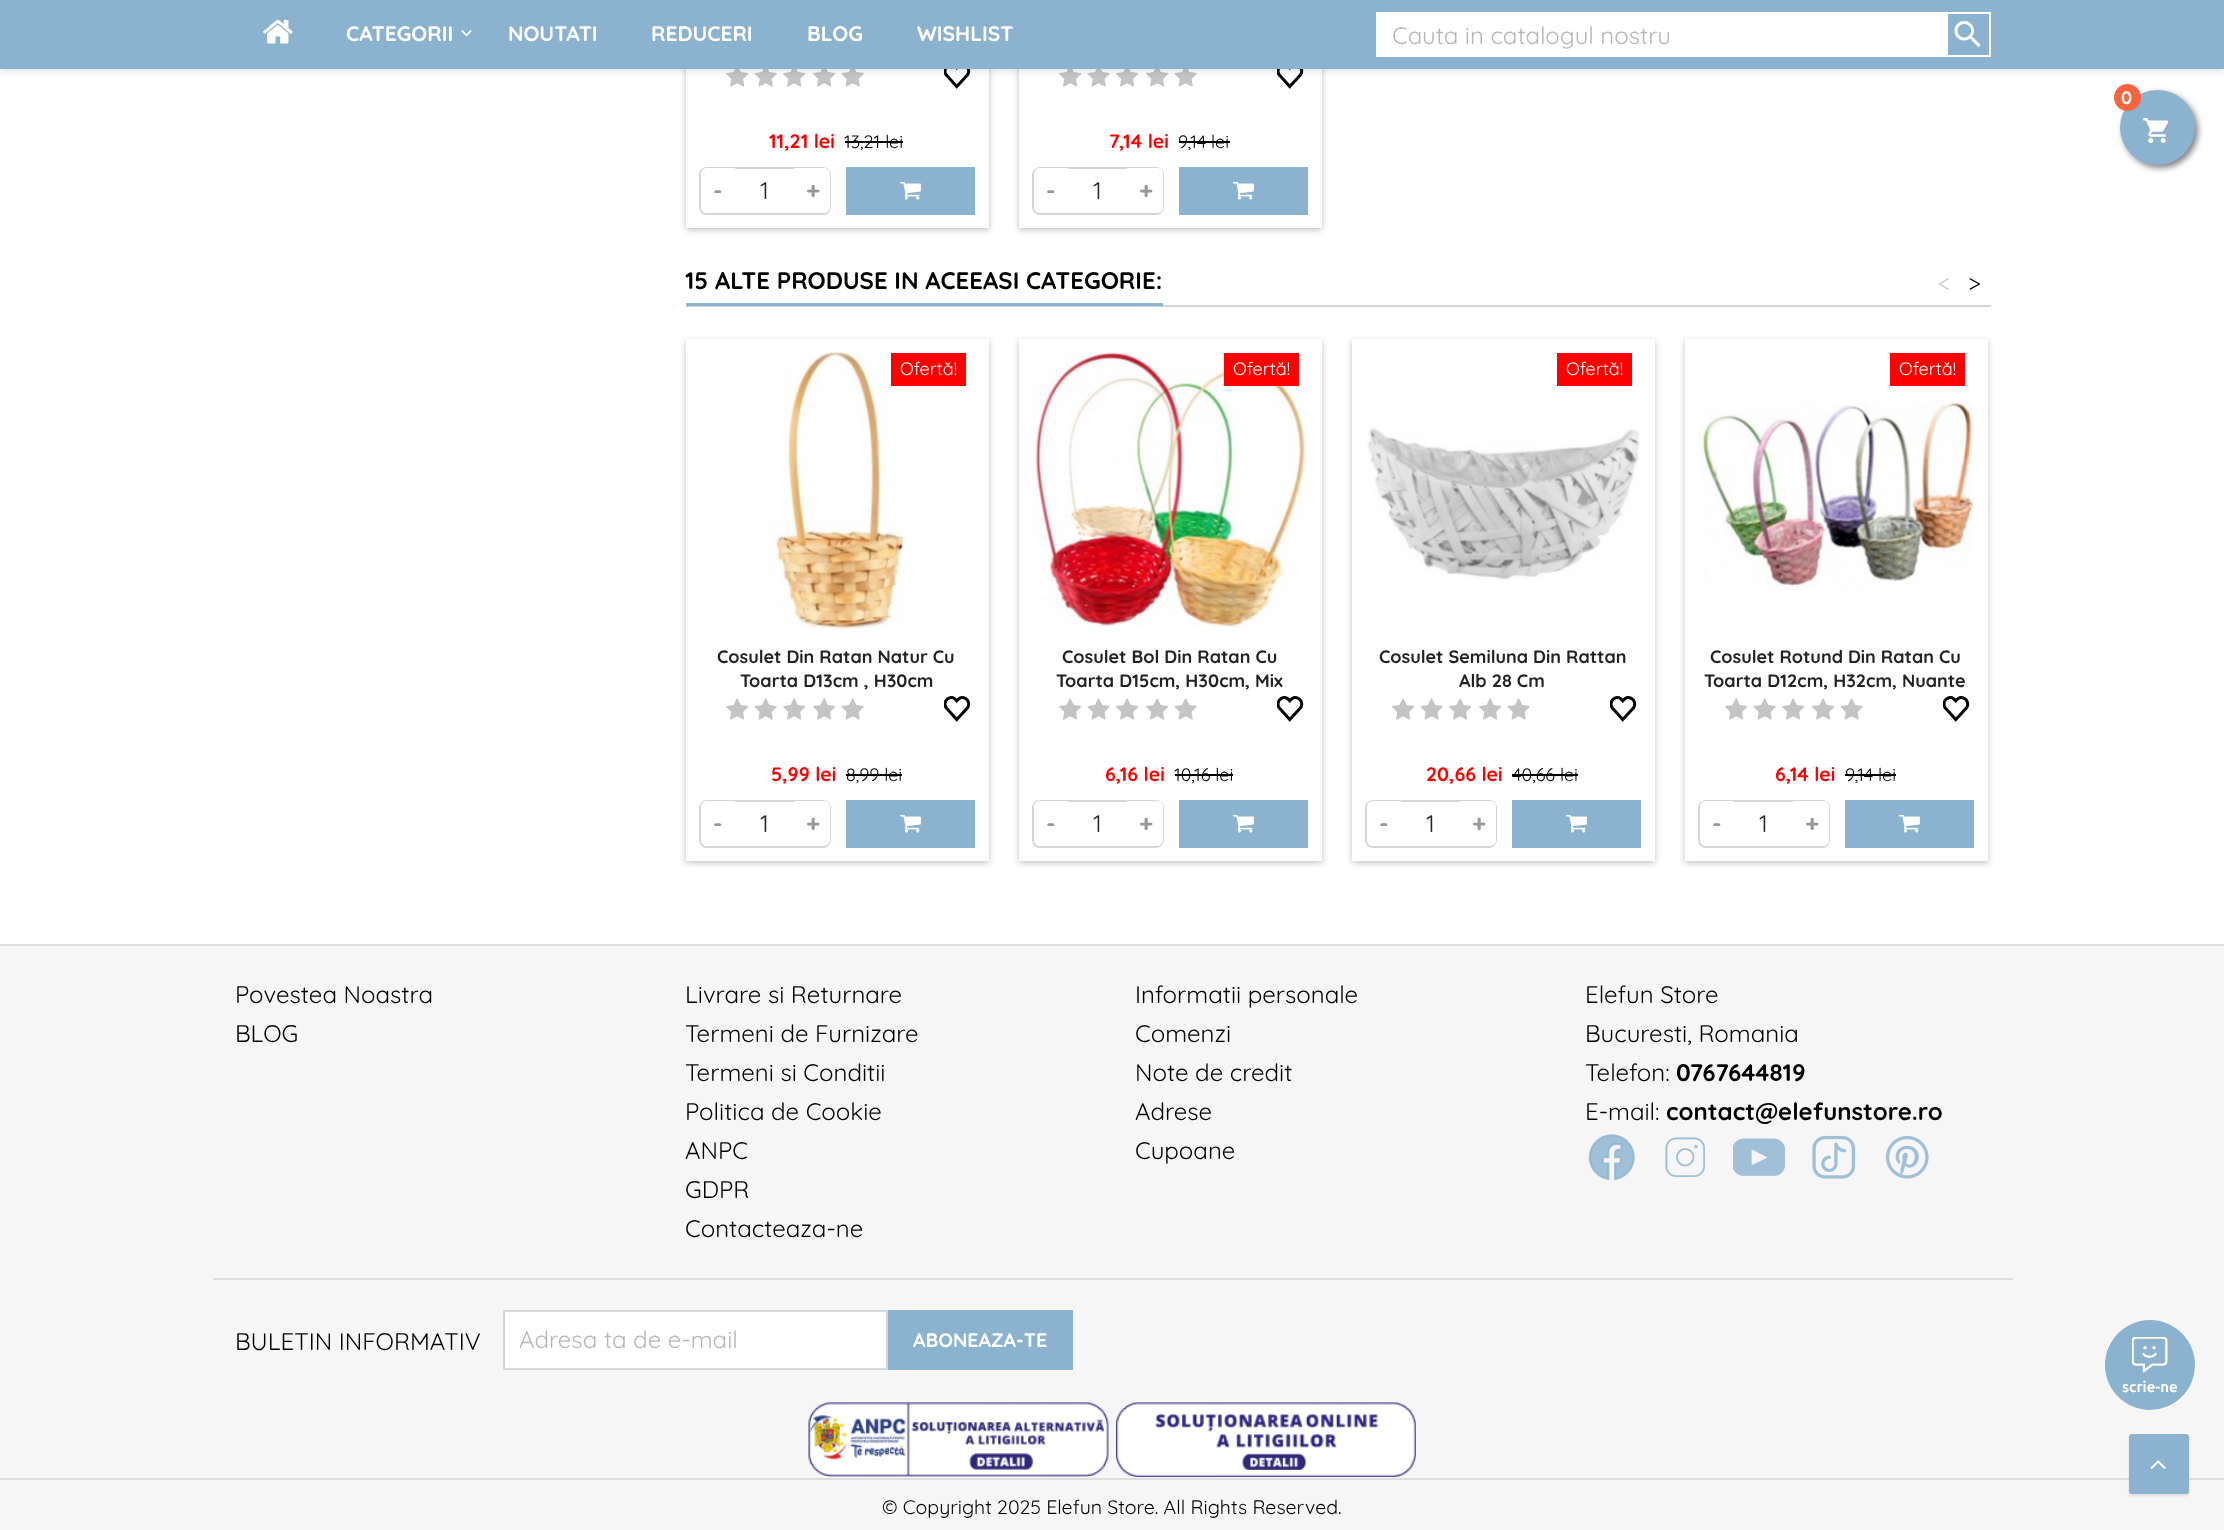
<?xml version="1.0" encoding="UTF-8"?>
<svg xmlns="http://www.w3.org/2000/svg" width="2224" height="1530">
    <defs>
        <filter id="blur1" x="-50%" y="-200%" width="200%" height="500%"><feGaussianBlur stdDeviation="3"/></filter>
        <filter id="blur2" x="-50%" y="-200%" width="200%" height="500%"><feGaussianBlur stdDeviation="1"/></filter>
    </defs>
    <rect width="100%" height="100%" fill="#FFFFFF"/>
    <rect x="686" y="-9" width="303" height="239" fill="#000000" fill-opacity="0.24" filter="url(#blur1)"/>
    <rect x="686" y="69" width="303" height="159" fill="#FFFFFF"/>
    <image x="726" y="69" width="23" height="18" href="img_05.png"/>
    <image x="754" y="69" width="23" height="18" href="img_06.png"/>
    <image x="783" y="69" width="23" height="18" href="img_05.png"/>
    <image x="813" y="69" width="23" height="18" href="img_05.png"/>
    <image x="841" y="69" width="23" height="18" href="img_06.png"/>
    <image x="944" y="69" width="27" height="20" href="img_07.png"/>
    <rect x="1019" y="-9" width="303" height="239" fill="#000000" fill-opacity="0.24" filter="url(#blur1)"/>
    <rect x="1019" y="69" width="303" height="159" fill="#FFFFFF"/>
    <image x="1059" y="69" width="23" height="18" href="img_05.png"/>
    <image x="1087" y="69" width="23" height="18" href="img_06.png"/>
    <image x="1116" y="69" width="23" height="18" href="img_05.png"/>
    <image x="1146" y="69" width="23" height="18" href="img_05.png"/>
    <image x="1174" y="69" width="23" height="18" href="img_06.png"/>
    <image x="1277" y="69" width="27" height="20" href="img_07.png"/>
    <rect x="0" y="3" width="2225" height="69" fill="#000000" fill-opacity="0.1" filter="url(#blur1)"/>
    <rect x="0" y="0" width="2224" height="69" fill="#8BB3D0"/>
    <image x="263" y="19" width="30" height="25" href="img_01.png"/>
    <text x="346" y="41" font-family="Quicksand" font-size="21" font-weight="700" fill="#FFFFFF">CATEGORII</text>
    <image x="461" y="30" width="11" height="7" href="img_02.png"/>
    <text x="508" y="41" font-family="Quicksand" font-size="21" font-weight="700" fill="#FFFFFF">NOUTATI</text>
    <text x="651" y="41" font-family="Quicksand" font-size="21" font-weight="700" fill="#FFFFFF">REDUCERI</text>
    <text x="807" y="41" font-family="Quicksand" font-size="21" font-weight="700" fill="#FFFFFF">BLOG</text>
    <text x="917" y="41" font-family="Quicksand" font-size="21" font-weight="700" fill="#FFFFFF">WISHLIST</text>
    <rect x="1376" y="12" width="570" height="45" fill="#FFFFFF"/>
    <text x="1392" y="44" font-family="Quicksand" font-size="24" fill="#B7B7B7">Cauta in catalogul nostru</text>
    <rect x="1947" y="13" width="43" height="43" fill="none" stroke="#FFFFFF" stroke-width="2"/>
    <image x="1954" y="21" width="27" height="27" href="img_03.png"/>
    <rect x="2123" y="93" width="75" height="75" rx="37.5" fill="#000000" fill-opacity="0.5" filter="url(#blur1)"/>
    <circle cx="2157.5" cy="127.5" r="37.5" fill="#8BB3D0"/>
    <circle cx="2127.5" cy="97.5" r="13.5" fill="#F8653D"/>
    <text x="2121" y="104" font-family="Quicksand" font-size="18" font-weight="700" fill="#FFFFFF">0</text>
    <image x="2143" y="118" width="26" height="25" href="img_04.png"/>
    <text x="769" y="148" font-family="Quicksand" font-size="19.5" font-weight="700" fill="#FF0000">11,21 lei</text>
    <text x="844" y="148" font-family="Quicksand" font-size="18" fill="#000000">13,21 lei</text>
    <rect x="845" y="141" width="58" height="2" fill="#000000"/>
    <rect x="700" y="168" width="130" height="46" rx="7" fill="none" stroke="#D6D4D4" stroke-width="2"/>
    <path d="M 707 168 H 735 V 213 H 707 C 703.5 213 701 210.5 701 207 V 174 C 701 170.5 703.5 168 707 168 Z" fill="#FFFFFF"/>
    <text x="713" y="199" font-family="Quicksand" font-size="24" font-weight="700" fill="#989898">-</text>
    <text x="760" y="199" font-family="Quicksand" font-size="24" fill="#232323">1</text>
    <path d="M 794 168 H 824 C 827.5 168 830 170.5 830 174 V 207 C 830 210.5 827.5 213 824 213 H 794 Z" fill="#FFFFFF"/>
    <text x="806" y="199" font-family="Quicksand" font-size="24" font-weight="700" fill="#989898">+</text>
    <rect x="846" y="167" width="129" height="48" fill="#8BB3D0"/>
    <image x="900" y="181" width="21" height="19" href="img_08.png"/>
    <text x="1109" y="148" font-family="Quicksand" font-size="19.5" font-weight="700" fill="#FF0000">7,14 lei</text>
    <text x="1178" y="148" font-family="Quicksand" font-size="18" fill="#000000">9,14 lei</text>
    <rect x="1179" y="141" width="51" height="2" fill="#000000"/>
    <rect x="1033" y="168" width="130" height="46" rx="7" fill="none" stroke="#D6D4D4" stroke-width="2"/>
    <path d="M 1040 168 H 1068 V 213 H 1040 C 1036.5 213 1034 210.5 1034 207 V 174 C 1034 170.5 1036.5 168 1040 168 Z" fill="#FFFFFF"/>
    <text x="1046" y="199" font-family="Quicksand" font-size="24" font-weight="700" fill="#989898">-</text>
    <text x="1093" y="199" font-family="Quicksand" font-size="24" fill="#232323">1</text>
    <path d="M 1127 168 H 1157 C 1160.5 168 1163 170.5 1163 174 V 207 C 1163 210.5 1160.5 213 1157 213 H 1127 Z" fill="#FFFFFF"/>
    <text x="1139" y="199" font-family="Quicksand" font-size="24" font-weight="700" fill="#989898">+</text>
    <rect x="1179" y="167" width="129" height="48" fill="#8BB3D0"/>
    <image x="1233" y="181" width="21" height="19" href="img_08.png"/>
    <rect x="686" y="305" width="1305" height="2" fill="#D6D4D4"/>
    <rect x="686" y="303" width="477" height="3" fill="#8BB3D0"/>
    <text x="685" y="289" font-family="Quicksand" font-size="24" font-weight="700" fill="#000000">15 ALTE PRODUSE IN ACEEASI CATEGORIE:</text>
    <text x="1938" y="292" font-family="Quicksand" font-size="24" fill="#CCCCCC">&lt;</text>
    <text x="1968" y="292" font-family="Quicksand" font-size="24" fill="#000000">&gt;</text>
    <rect x="686" y="341" width="303" height="522" fill="#000000" fill-opacity="0.24" filter="url(#blur1)"/>
    <rect x="686" y="339" width="303" height="522" fill="#FFFFFF"/>
    <image x="767" y="351" width="138" height="278" href="img_09.png"/>
    <rect x="891" y="353" width="75" height="33" fill="#FF0000"/>
    <text x="900" y="375" font-family="Quicksand" font-size="18" fill="#FFFFFF">Ofertă!</text>
    <text x="717" y="663" font-family="Quicksand" font-size="18" font-weight="700" fill="#232323">Cosulet Din Ratan Natur Cu</text>
    <text x="740" y="687" font-family="Quicksand" font-size="18" font-weight="700" fill="#232323">Toarta D13cm , H30cm</text>
    <image x="726" y="698" width="23" height="22" href="img_10.png"/>
    <image x="754" y="698" width="23" height="22" href="img_11.png"/>
    <image x="783" y="698" width="23" height="22" href="img_10.png"/>
    <image x="813" y="698" width="23" height="22" href="img_10.png"/>
    <image x="841" y="698" width="23" height="22" href="img_11.png"/>
    <image x="944" y="696" width="27" height="26" href="img_12.png"/>
    <text x="771" y="781" font-family="Quicksand" font-size="19.5" font-weight="700" fill="#FF0000">5,99 lei</text>
    <text x="846" y="781" font-family="Quicksand" font-size="18" fill="#000000">8,99 lei</text>
    <rect x="846" y="774" width="56" height="2" fill="#000000"/>
    <rect x="700" y="801" width="130" height="46" rx="7" fill="none" stroke="#D6D4D4" stroke-width="2"/>
    <path d="M 707 801 H 735 V 846 H 707 C 703.5 846 701 843.5 701 840 V 807 C 701 803.5 703.5 801 707 801 Z" fill="#FFFFFF"/>
    <text x="713" y="832" font-family="Quicksand" font-size="24" font-weight="700" fill="#989898">-</text>
    <text x="760" y="832" font-family="Quicksand" font-size="24" fill="#232323">1</text>
    <path d="M 794 801 H 824 C 827.5 801 830 803.5 830 807 V 840 C 830 843.5 827.5 846 824 846 H 794 Z" fill="#FFFFFF"/>
    <text x="806" y="832" font-family="Quicksand" font-size="24" font-weight="700" fill="#989898">+</text>
    <rect x="846" y="800" width="129" height="48" fill="#8BB3D0"/>
    <image x="900" y="814" width="21" height="19" href="img_08.png"/>
    <rect x="1019" y="341" width="303" height="522" fill="#000000" fill-opacity="0.24" filter="url(#blur1)"/>
    <rect x="1019" y="339" width="303" height="522" fill="#FFFFFF"/>
    <image x="1032" y="352" width="274" height="276" href="img_13.png"/>
    <rect x="1224" y="353" width="75" height="33" fill="#FF0000"/>
    <text x="1233" y="375" font-family="Quicksand" font-size="18" fill="#FFFFFF">Ofertă!</text>
    <text x="1062" y="663" font-family="Quicksand" font-size="18" font-weight="700" fill="#232323">Cosulet Bol Din Ratan Cu</text>
    <text x="1056" y="687" font-family="Quicksand" font-size="18" font-weight="700" fill="#232323">Toarta D15cm, H30cm, Mix</text>
    <image x="1059" y="698" width="23" height="22" href="img_10.png"/>
    <image x="1087" y="698" width="23" height="22" href="img_11.png"/>
    <image x="1116" y="698" width="23" height="22" href="img_10.png"/>
    <image x="1146" y="698" width="23" height="22" href="img_10.png"/>
    <image x="1174" y="698" width="23" height="22" href="img_11.png"/>
    <image x="1277" y="696" width="27" height="26" href="img_12.png"/>
    <text x="1105" y="781" font-family="Quicksand" font-size="19.5" font-weight="700" fill="#FF0000">6,16 lei</text>
    <text x="1174" y="781" font-family="Quicksand" font-size="18" fill="#000000">10,16 lei</text>
    <rect x="1175" y="774" width="58" height="2" fill="#000000"/>
    <rect x="1033" y="801" width="130" height="46" rx="7" fill="none" stroke="#D6D4D4" stroke-width="2"/>
    <path d="M 1040 801 H 1068 V 846 H 1040 C 1036.5 846 1034 843.5 1034 840 V 807 C 1034 803.5 1036.5 801 1040 801 Z" fill="#FFFFFF"/>
    <text x="1046" y="832" font-family="Quicksand" font-size="24" font-weight="700" fill="#989898">-</text>
    <text x="1093" y="832" font-family="Quicksand" font-size="24" fill="#232323">1</text>
    <path d="M 1127 801 H 1157 C 1160.5 801 1163 803.5 1163 807 V 840 C 1163 843.5 1160.5 846 1157 846 H 1127 Z" fill="#FFFFFF"/>
    <text x="1139" y="832" font-family="Quicksand" font-size="24" font-weight="700" fill="#989898">+</text>
    <rect x="1179" y="800" width="129" height="48" fill="#8BB3D0"/>
    <image x="1233" y="814" width="21" height="19" href="img_08.png"/>
    <rect x="1352" y="341" width="303" height="522" fill="#000000" fill-opacity="0.24" filter="url(#blur1)"/>
    <rect x="1352" y="339" width="303" height="522" fill="#FFFFFF"/>
    <rect x="1557" y="353" width="75" height="33" fill="#FF0000"/>
    <text x="1566" y="375" font-family="Quicksand" font-size="18" fill="#FFFFFF">Ofertă!</text>
    <image x="1367" y="428" width="273" height="152" href="img_14.png"/>
    <text x="1379" y="663" font-family="Quicksand" font-size="18" font-weight="700" fill="#232323">Cosulet Semiluna Din Rattan</text>
    <text x="1459" y="687" font-family="Quicksand" font-size="18" font-weight="700" fill="#232323">Alb 28 Cm</text>
    <image x="1392" y="698" width="23" height="22" href="img_10.png"/>
    <image x="1420" y="698" width="23" height="22" href="img_11.png"/>
    <image x="1449" y="698" width="23" height="22" href="img_10.png"/>
    <image x="1479" y="698" width="23" height="22" href="img_10.png"/>
    <image x="1507" y="698" width="23" height="22" href="img_11.png"/>
    <image x="1610" y="696" width="27" height="26" href="img_12.png"/>
    <text x="1426" y="781" font-family="Quicksand" font-size="19.5" font-weight="700" fill="#FF0000">20,66 lei</text>
    <text x="1512" y="781" font-family="Quicksand" font-size="18" fill="#000000">40,66 lei</text>
    <rect x="1512" y="774" width="66" height="2" fill="#000000"/>
    <rect x="1366" y="801" width="130" height="46" rx="7" fill="none" stroke="#D6D4D4" stroke-width="2"/>
    <path d="M 1373 801 H 1401 V 846 H 1373 C 1369.5 846 1367 843.5 1367 840 V 807 C 1367 803.5 1369.5 801 1373 801 Z" fill="#FFFFFF"/>
    <text x="1379" y="832" font-family="Quicksand" font-size="24" font-weight="700" fill="#989898">-</text>
    <text x="1426" y="832" font-family="Quicksand" font-size="24" fill="#232323">1</text>
    <path d="M 1460 801 H 1490 C 1493.5 801 1496 803.5 1496 807 V 840 C 1496 843.5 1493.5 846 1490 846 H 1460 Z" fill="#FFFFFF"/>
    <text x="1472" y="832" font-family="Quicksand" font-size="24" font-weight="700" fill="#989898">+</text>
    <rect x="1512" y="800" width="129" height="48" fill="#8BB3D0"/>
    <image x="1566" y="814" width="21" height="19" href="img_08.png"/>
    <rect x="1685" y="341" width="303" height="522" fill="#000000" fill-opacity="0.24" filter="url(#blur1)"/>
    <rect x="1685" y="339" width="303" height="522" fill="#FFFFFF"/>
    <rect x="1890" y="353" width="75" height="33" fill="#FF0000"/>
    <text x="1899" y="375" font-family="Quicksand" font-size="18" fill="#FFFFFF">Ofertă!</text>
    <image x="1698" y="402" width="276" height="188" href="img_15.png"/>
    <text x="1710" y="663" font-family="Quicksand" font-size="18" font-weight="700" fill="#232323">Cosulet Rotund Din Ratan Cu</text>
    <text x="1704" y="687" font-family="Quicksand" font-size="18" font-weight="700" fill="#232323">Toarta D12cm, H32cm, Nuante</text>
    <image x="1725" y="698" width="23" height="22" href="img_10.png"/>
    <image x="1753" y="698" width="23" height="22" href="img_11.png"/>
    <image x="1782" y="698" width="23" height="22" href="img_10.png"/>
    <image x="1812" y="698" width="23" height="22" href="img_10.png"/>
    <image x="1840" y="698" width="23" height="22" href="img_11.png"/>
    <image x="1943" y="696" width="27" height="26" href="img_12.png"/>
    <text x="1775" y="781" font-family="Quicksand" font-size="19.5" font-weight="700" fill="#FF0000">6,14 lei</text>
    <text x="1845" y="781" font-family="Quicksand" font-size="18" fill="#000000">9,14 lei</text>
    <rect x="1845" y="774" width="51" height="2" fill="#000000"/>
    <rect x="1699" y="801" width="130" height="46" rx="7" fill="none" stroke="#D6D4D4" stroke-width="2"/>
    <path d="M 1706 801 H 1734 V 846 H 1706 C 1702.5 846 1700 843.5 1700 840 V 807 C 1700 803.5 1702.5 801 1706 801 Z" fill="#FFFFFF"/>
    <text x="1712" y="832" font-family="Quicksand" font-size="24" font-weight="700" fill="#989898">-</text>
    <text x="1759" y="832" font-family="Quicksand" font-size="24" fill="#232323">1</text>
    <path d="M 1793 801 H 1823 C 1826.5 801 1829 803.5 1829 807 V 840 C 1829 843.5 1826.5 846 1823 846 H 1793 Z" fill="#FFFFFF"/>
    <text x="1805" y="832" font-family="Quicksand" font-size="24" font-weight="700" fill="#989898">+</text>
    <rect x="1845" y="800" width="129" height="48" fill="#8BB3D0"/>
    <image x="1899" y="814" width="21" height="19" href="img_08.png"/>
    <rect x="0" y="946" width="2224" height="584" fill="#F6F6F6"/>
    <rect x="0" y="944" width="2224" height="2" fill="#DDDDDD"/>
    <text font-family="Quicksand" font-size="24" fill="#000000">
        <tspan x="235" y="1003">Povestea Noastra</tspan>
        <tspan x="235" y="1042">BLOG</tspan>
    </text>
    <text font-family="Quicksand" font-size="24" fill="#000000">
        <tspan x="685" y="1003">Livrare si Returnare</tspan>
        <tspan x="685" y="1042">Termeni de Furnizare</tspan>
        <tspan x="685" y="1081">Termeni si Conditii</tspan>
        <tspan x="685" y="1120">Politica de Cookie</tspan>
        <tspan x="685" y="1159">ANPC</tspan>
        <tspan x="685" y="1198">GDPR</tspan>
        <tspan x="685" y="1237">Contacteaza-ne</tspan>
    </text>
    <text font-family="Quicksand" font-size="24" fill="#000000">
        <tspan x="1135" y="1003">Informatii personale</tspan>
        <tspan x="1135" y="1042">Comenzi</tspan>
        <tspan x="1135" y="1081">Note de credit</tspan>
        <tspan x="1135" y="1120">Adrese</tspan>
        <tspan x="1135" y="1159">Cupoane</tspan>
    </text>
    <text font-family="Quicksand" font-size="24" fill="#000000">
        <tspan x="1585" y="1003">Elefun Store</tspan>
        <tspan x="1585" y="1042">Bucuresti, Romania</tspan>
        <tspan x="1585" y="1081">Telefon:</tspan>
    </text>
    <text x="1676" y="1081" font-family="Quicksand" font-size="24" font-weight="700" fill="#000000">0767644819</text>
    <text x="1585" y="1120" font-family="Quicksand" font-size="24" fill="#000000">E-mail:</text>
    <text x="1666" y="1120" font-family="Quicksand" font-size="24" font-weight="700" fill="#000000">contact@elefunstore.ro</text>
    <image x="1588" y="1134" width="47" height="47" href="img_16.png"/>
    <image x="1665" y="1137" width="40" height="41" href="img_17.png"/>
    <image x="1733" y="1138" width="52" height="38" href="img_18.png"/>
    <image x="1812" y="1135" width="44" height="44" href="img_19.png"/>
    <image x="1885" y="1135" width="44" height="44" href="img_20.png"/>
    <circle cx="2150" cy="1365" r="45" fill="#8BB2CF"/>
    <image x="2132" y="1337" width="36" height="36" href="img_21.png"/>
    <text x="2122" y="1392" font-family="Ubuntu" font-size="15" font-weight="700" fill="#FFFFFF">scrie-ne</text>
    <rect x="0" y="1478" width="2224" height="2" fill="#DDDDDD"/>
    <rect x="2129" y="1436" width="60" height="60" rx="3" fill="#000000" fill-opacity="0.1" filter="url(#blur2)"/>
    <rect x="2129" y="1434" width="60" height="60" rx="3" fill="#8BB3D0"/>
    <image x="2150" y="1460" width="16" height="9" href="img_22.png"/>
    <rect x="213" y="1278" width="1800" height="2" fill="#DDDDDD"/>
    <text x="235" y="1350" font-family="Quicksand" font-size="24" fill="#000000">BULETIN INFORMATIV</text>
    <rect x="504" y="1311" width="383" height="58" fill="#FFFFFF" stroke="#D6D4D4" stroke-width="2"/>
    <text x="519" y="1348" font-family="Quicksand" font-size="24" fill="#B7B7B7">Adresa ta de e-mail</text>
    <rect x="888" y="1310" width="185" height="60" fill="#8BB3D0"/>
    <text x="913" y="1347" font-family="Quicksand" font-size="19.5" font-weight="700" fill="#FFFFFF">ABONEAZA-TE</text>
    <image x="808" y="1402" width="301" height="75" href="img_23.png"/>
    <image x="1116" y="1402" width="300" height="75" href="img_24.png"/>
    <text x="882" y="1514" font-family="Quicksand" font-size="19.5" fill="#000000">© Copyright 2025 Elefun Store. All Rights Reserved.</text>
</svg>
